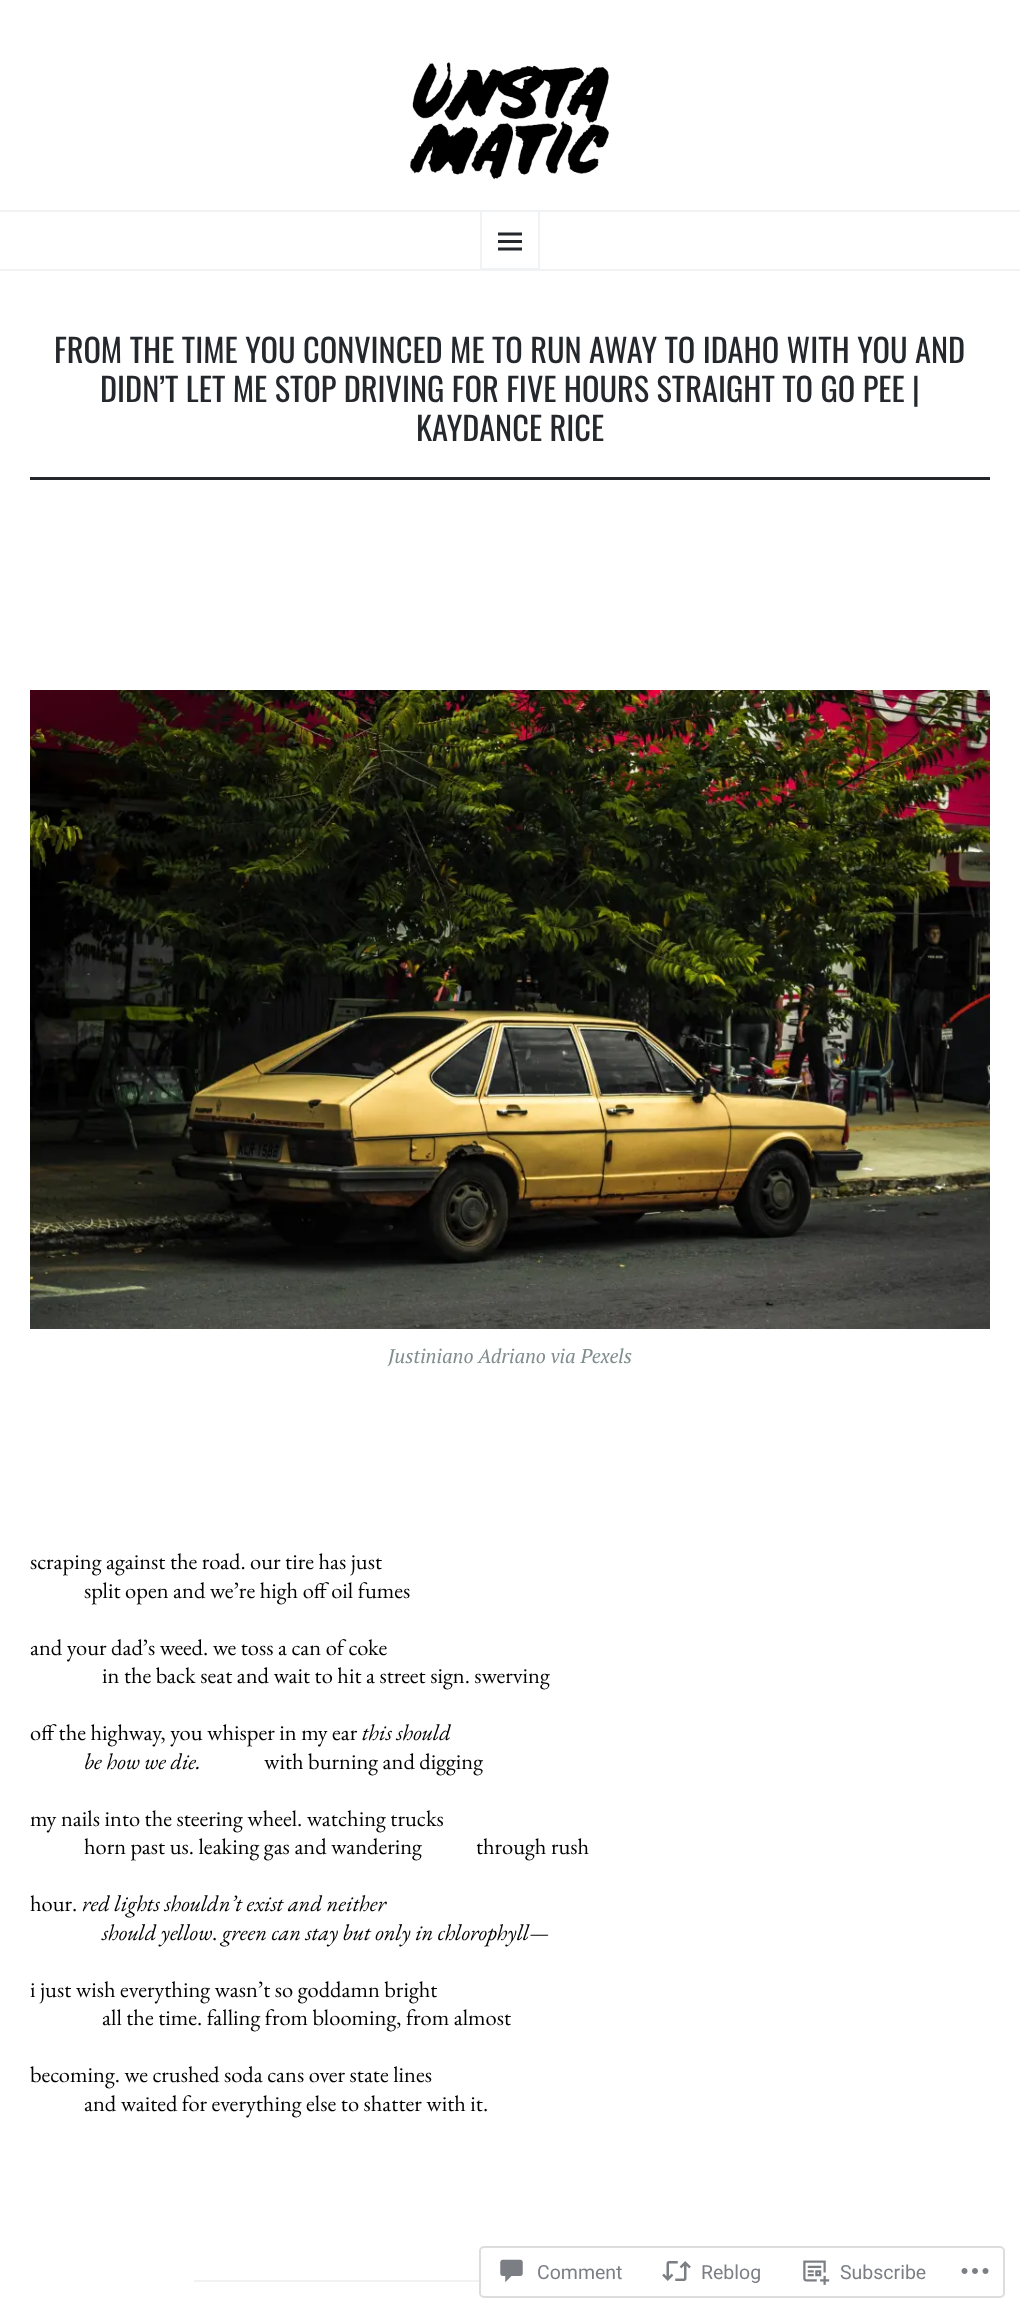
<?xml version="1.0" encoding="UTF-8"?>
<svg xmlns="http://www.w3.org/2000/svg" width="1020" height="2313">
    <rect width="100%" height="100%" fill="#FFFFFF"/>
    <image x="410" y="62" width="199" height="118" href="img_01.png"/>
    <rect x="0" y="210" width="1020" height="2" fill="#F1F2F3"/>
    <rect x="0" y="269" width="1020" height="2" fill="#F1F2F3"/>
    <rect x="481" y="211" width="58" height="58" fill="none" stroke="#F1F2F3" stroke-width="2"/>
    <image x="498" y="232" width="24" height="19" href="img_02.png"/>
    <text x="54" y="363" font-family="Oswald" font-size="32.4" fill="#24282D">FROM THE TIME YOU CONVINCED ME TO RUN AWAY TO IDAHO WITH YOU AND</text>
    <text x="100" y="402" font-family="Oswald" font-size="32.4" fill="#24282D">DIDN’T LET ME STOP DRIVING FOR FIVE HOURS STRAIGHT TO GO PEE |</text>
    <text x="416" y="441" font-family="Oswald" font-size="32.4" fill="#24282D">KAYDANCE RICE</text>
    <rect x="30" y="477" width="960" height="3" fill="#24282D"/>
    <image x="30" y="690" width="960" height="639" href="img_03.png"/>
    <text x="388" y="1363" font-family="PT Serif" font-size="19.75" font-style="italic" fill="#7F8D8C">Justiniano Adriano via Pexels</text>
    <text x="30" y="1569" font-family="EB Garamond" font-size="22.5" fill="#000000">scraping against the road. our tire has just</text>
    <text x="84" y="1598" font-family="EB Garamond" font-size="22.5" fill="#000000">split open and we’re high off oil fumes</text>
    <text x="30" y="1655" font-family="EB Garamond" font-size="22.5" fill="#000000">and your dad’s weed. we toss a can of coke</text>
    <text x="102" y="1683" font-family="EB Garamond" font-size="22.5" fill="#000000">in the back seat and wait to hit a street sign. swerving</text>
    <text x="30" y="1740" font-family="EB Garamond" font-size="22.5" fill="#000000">off the highway, you whisper in my ear</text>
    <text x="362" y="1740" font-family="EB Garamond" font-size="22.5" font-style="italic" fill="#000000">this should</text>
    <text x="84" y="1769" font-family="EB Garamond" font-size="22.5" font-style="italic" fill="#000000">be how we die.</text>
    <text x="264" y="1769" font-family="EB Garamond" font-size="22.5" fill="#000000">with burning and digging</text>
    <text x="30" y="1826" font-family="EB Garamond" font-size="22.5" fill="#000000">my nails into the steering wheel. watching trucks</text>
    <text x="84" y="1854" font-family="EB Garamond" font-size="22.5" fill="#000000" xml:space="preserve">horn past us. leaking gas and wandering            through rush</text>
    <text x="30" y="1911" font-family="EB Garamond" font-size="22.5" fill="#000000">hour.</text>
    <text x="82" y="1911" font-family="EB Garamond" font-size="22.5" font-style="italic" fill="#000000">red lights shouldn’t exist and neither</text>
    <text x="102" y="1940" font-family="EB Garamond" font-size="22.5" font-style="italic" fill="#000000">should yellow</text>
    <text x="212" y="1940" font-family="EB Garamond" font-size="22.5" fill="#000000">.</text>
    <text x="222" y="1940" font-family="EB Garamond" font-size="22.5" font-style="italic" fill="#000000">green can stay but only in chlorophyll—</text>
    <text x="30" y="1997" font-family="EB Garamond" font-size="22.5" fill="#000000">i just wish everything wasn’t so goddamn bright</text>
    <text x="102" y="2025" font-family="EB Garamond" font-size="22.5" fill="#000000">all the time. falling from blooming, from almost</text>
    <text x="30" y="2082" font-family="EB Garamond" font-size="22.5" fill="#000000">becoming. we crushed soda cans over state lines</text>
    <text x="84" y="2111" font-family="EB Garamond" font-size="22.5" fill="#000000">and waited for everything else to shatter with it.</text>
    <rect x="194" y="2280" width="633" height="2" fill="#F1F2F3"/>
    <rect x="480" y="2247" width="524" height="50" rx="4" fill="#FFFFFF" fill-opacity="0.98" stroke="#DDDDDF" stroke-width="2"/>
    <image x="500" y="2259" width="23" height="24" href="img_04.png"/>
    <text x="537" y="2279" font-family="Roboto" font-size="19.5" fill="#7B7F85">Comment</text>
    <image x="662" y="2261" width="29" height="20" href="img_05.png"/>
    <text x="701" y="2279" font-family="Roboto" font-size="19.5" fill="#7B7F85">Reblog</text>
    <image x="803" y="2260" width="27" height="25" href="img_06.png"/>
    <text x="840" y="2279" font-family="Roboto" font-size="19.5" fill="#7B7F85">Subscribe</text>
    <image x="961" y="2268" width="28" height="6" href="img_07.png"/>
</svg>
